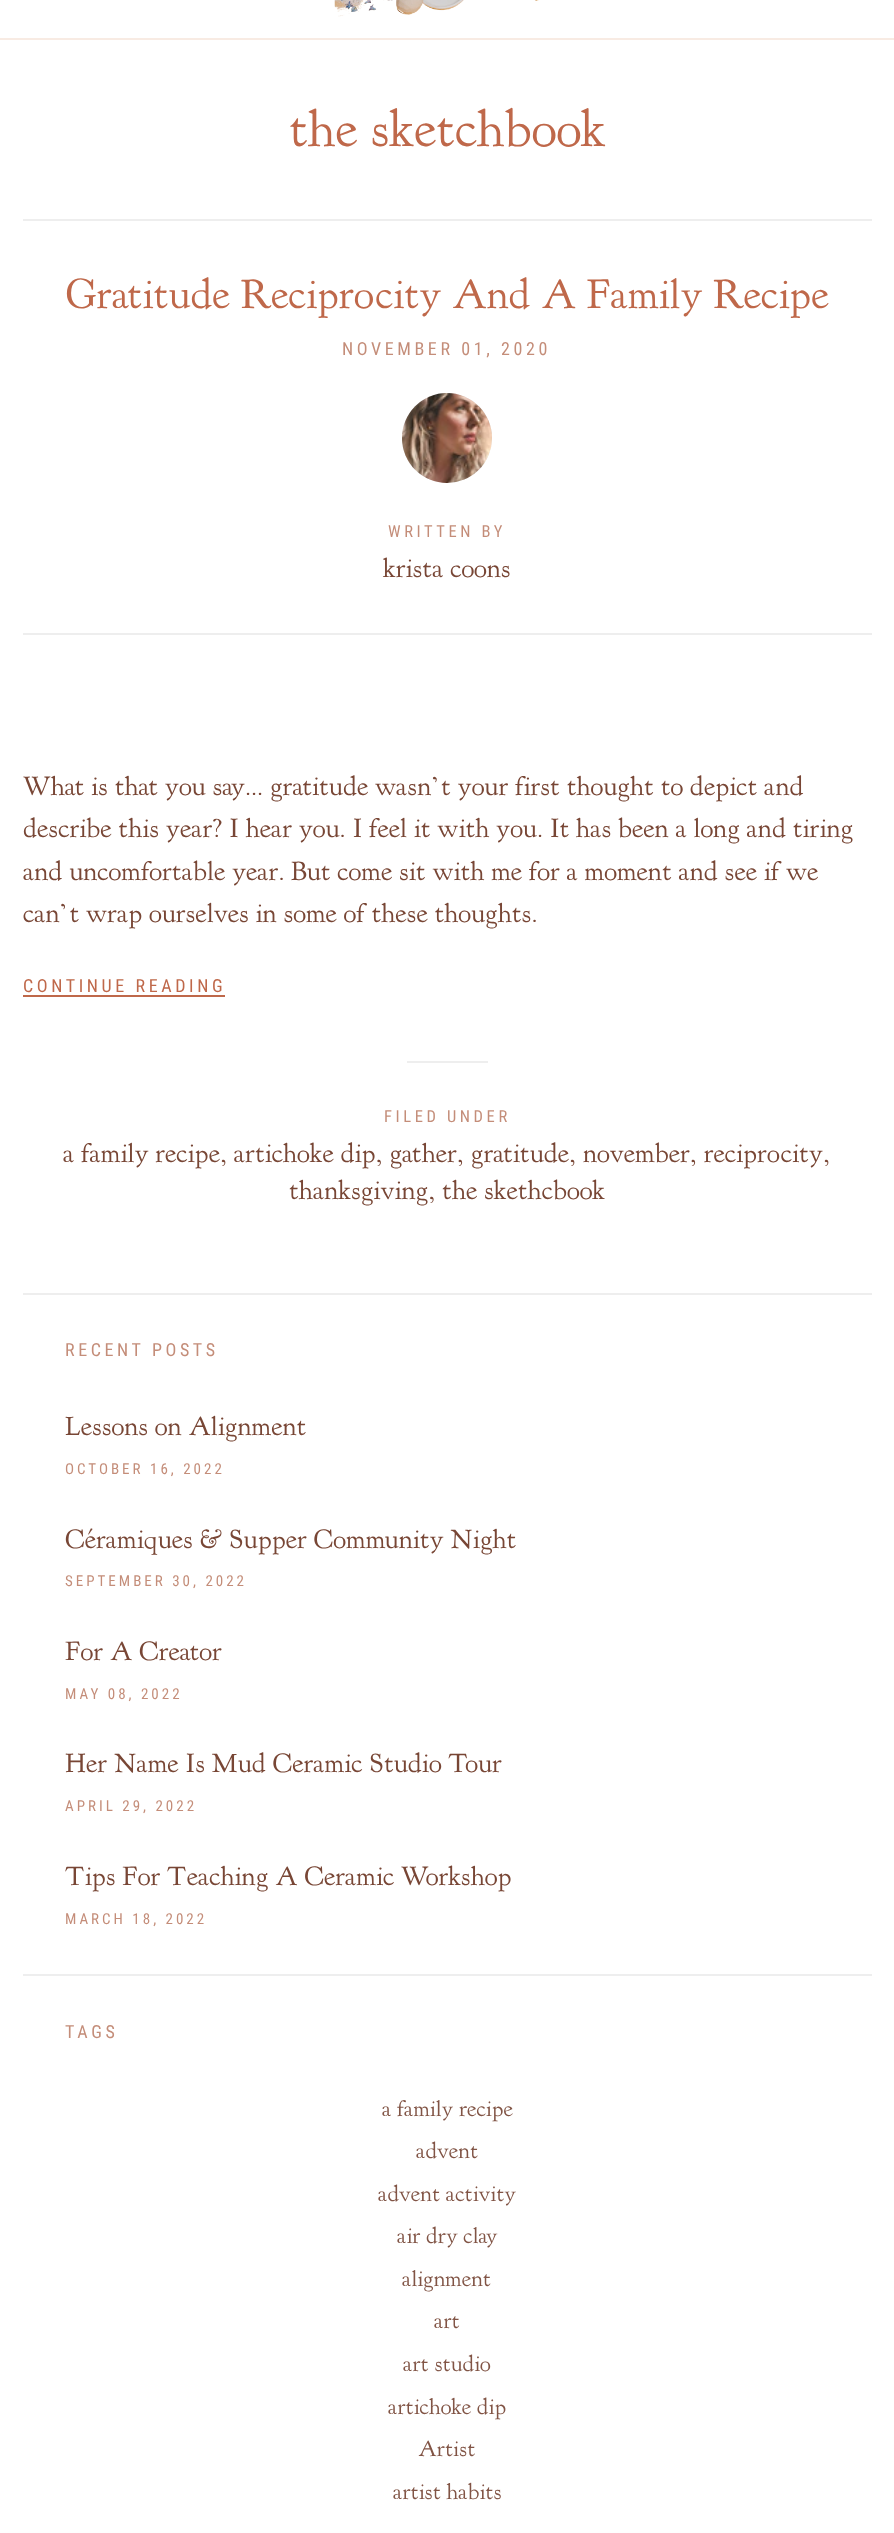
<?xml version="1.0" encoding="UTF-8"?>
<svg xmlns="http://www.w3.org/2000/svg" width="894" height="2533">
    <rect width="100%" height="100%" fill="#FFFFFF"/>
    <rect x="0" y="38" width="894" height="2" fill="#F8EBE3"/>
    <image x="334" y="0" width="205" height="17" href="img_01.png"/>
    <text x="289" y="146" font-family="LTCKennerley" font-size="52.5" fill="#BF684A">the sketchbook</text>
    <rect x="23" y="219" width="849" height="2" fill="#EEEEEE"/>
    <rect x="23" y="633" width="849" height="2" fill="#EEEEEE"/>
    <text x="66" y="308" font-family="LTCKennerley" font-size="42" fill="#BF684A">Gratitude Reciprocity And A Family Recipe</text>
    <text x="342" y="355" font-family="Roboto Condensed" font-size="18" letter-spacing="3.6" fill="#C48D79">NOVEMBER 01, 2020</text>
    <circle cx="447" cy="438" r="45" fill="#E5E5E5"/>
    <image x="402" y="393" width="90" height="90" href="img_02.png"/>
    <text x="388" y="537" font-family="Roboto Condensed" font-size="16.5" letter-spacing="3.6" fill="#C48D79">WRITTEN BY</text>
    <text x="383" y="577" font-family="LTCKennerley" font-size="27" fill="#784635">krista coons</text>
    <text font-family="LTCKennerley" font-size="27" fill="#784635">
        <tspan x="23" y="795">What is that you say... gratitude wasn’t your first thought to depict and</tspan>
        <tspan x="23" y="837">describe this year? I hear you. I feel it with you. It has been a long and tiring</tspan>
        <tspan x="23" y="880">and uncomfortable year. But come sit with me for a moment and see if we</tspan>
        <tspan x="23" y="922">can’t wrap ourselves in some of these thoughts.</tspan>
    </text>
    <text x="23" y="992" font-family="Roboto Condensed" font-size="18" letter-spacing="3.6" fill="#BF684A">CONTINUE READING</text>
    <rect x="23" y="995" width="202" height="2" fill="#BF684A"/>
    <rect x="407" y="1061" width="81" height="2" fill="#EEEEEE"/>
    <text x="384" y="1122" font-family="Roboto Condensed" font-size="16.5" letter-spacing="3.6" fill="#C48D79">FILED UNDER</text>
    <text x="63" y="1162" font-family="LTCKennerley" font-size="27" fill="#784635">a family recipe, artichoke dip, gather, gratitude, november, reciprocity,</text>
    <text x="289" y="1199" font-family="LTCKennerley" font-size="27" fill="#784635">thanksgiving, the skethcbook</text>
    <rect x="23" y="1293" width="849" height="2" fill="#EEEEEE"/>
    <text x="65" y="1356" font-family="Roboto Condensed" font-size="18" letter-spacing="3.6" fill="#C48D79">RECENT POSTS</text>
    <text x="65" y="1435" font-family="LTCKennerley" font-size="27" fill="#784635">Lessons on Alignment</text>
    <text x="65" y="1474" font-family="Roboto Condensed" font-size="15" letter-spacing="3" fill="#C48D79">OCTOBER 16, 2022</text>
    <text x="65" y="1548" font-family="LTCKennerley" font-size="27" fill="#784635">Céramiques &amp; Supper Community Night</text>
    <text x="65" y="1586" font-family="Roboto Condensed" font-size="15" letter-spacing="3" fill="#C48D79">SEPTEMBER 30, 2022</text>
    <text x="65" y="1660" font-family="LTCKennerley" font-size="27" fill="#784635">For A Creator</text>
    <text x="65" y="1699" font-family="Roboto Condensed" font-size="15" letter-spacing="3" fill="#C48D79">MAY 08, 2022</text>
    <text x="65" y="1772" font-family="LTCKennerley" font-size="27" fill="#784635">Her Name Is Mud Ceramic Studio Tour</text>
    <text x="65" y="1811" font-family="Roboto Condensed" font-size="15" letter-spacing="3" fill="#C48D79">APRIL 29, 2022</text>
    <text x="65" y="1885" font-family="LTCKennerley" font-size="27" fill="#784635">Tips For Teaching A Ceramic Workshop</text>
    <text x="65" y="1924" font-family="Roboto Condensed" font-size="15" letter-spacing="3" fill="#C48D79">MARCH 18, 2022</text>
    <rect x="23" y="1974" width="849" height="2" fill="#EEEEEE"/>
    <text x="65" y="2038" font-family="Roboto Condensed" font-size="18" letter-spacing="3.6" fill="#C48D79">TAGS</text>
    <text x="382" y="2116" font-family="LTCKennerley" font-size="22.5" fill="#815445">a family recipe</text>
    <text x="416" y="2158" font-family="LTCKennerley" font-size="22.5" fill="#815445">advent</text>
    <text x="378" y="2201" font-family="LTCKennerley" font-size="22.5" fill="#815445">advent activity</text>
    <text x="397" y="2243" font-family="LTCKennerley" font-size="22.5" fill="#815445">air dry clay</text>
    <text x="402" y="2286" font-family="LTCKennerley" font-size="22.5" fill="#815445">alignment</text>
    <text x="434" y="2328" font-family="LTCKennerley" font-size="22.5" fill="#815445">art</text>
    <text x="403" y="2371" font-family="LTCKennerley" font-size="22.5" fill="#815445">art studio</text>
    <text x="388" y="2414" font-family="LTCKennerley" font-size="22.5" fill="#815445">artichoke dip</text>
    <text x="418" y="2456" font-family="LTCKennerley" font-size="22.5" fill="#815445">Artist</text>
    <text x="393" y="2499" font-family="LTCKennerley" font-size="22.5" fill="#815445">artist habits</text>
</svg>
